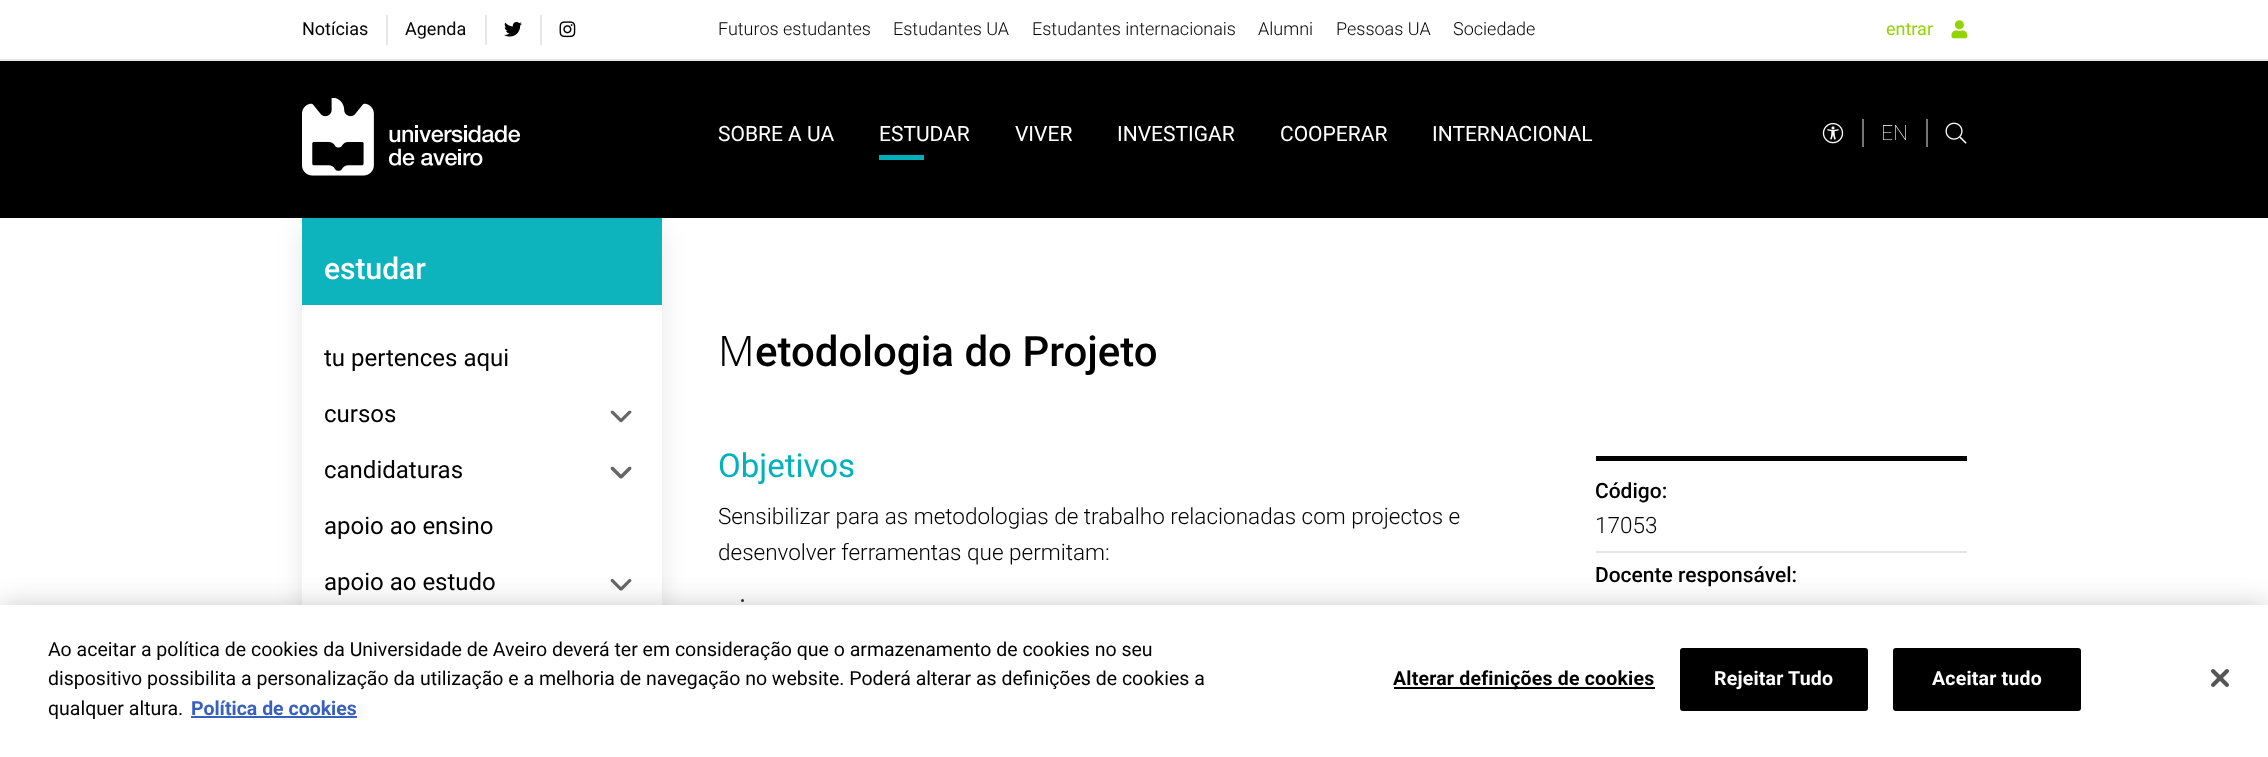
<?xml version="1.0" encoding="UTF-8"?>
<svg xmlns="http://www.w3.org/2000/svg" width="2268" height="757">
    <defs>
        <filter id="blur1" x="-50%" y="-200%" width="200%" height="500%"><feGaussianBlur stdDeviation="12"/></filter>
        <filter id="blur2" x="-50%" y="-200%" width="200%" height="500%"><feGaussianBlur stdDeviation="13.5"/></filter>
    </defs>
    <rect width="100%" height="100%" fill="#FFFFFF"/>
    <rect x="0" y="59" width="2268" height="2" fill="#E6E6E6"/>
    <rect x="386" y="15" width="2" height="30" fill="#E6E6E6"/>
    <text x="302" y="35" font-family="Roboto" font-size="18" fill="#000000">Notícias</text>
    <rect x="485" y="15" width="2" height="30" fill="#E6E6E6"/>
    <text x="405" y="35" font-family="Roboto" font-size="18" fill="#000000">Agenda</text>
    <rect x="540" y="15" width="2" height="30" fill="#E6E6E6"/>
    <image x="504" y="21" width="18" height="16" href="img_01.png"/>
    <image x="559" y="21" width="17" height="17" href="img_02.png"/>
    <text x="718" y="35" font-family="Roboto" font-size="18" font-weight="300" fill="#000000">Futuros estudantes</text>
    <text x="893" y="35" font-family="Roboto" font-size="18" font-weight="300" fill="#000000">Estudantes UA</text>
    <text x="1032" y="35" font-family="Roboto" font-size="18" font-weight="300" fill="#000000">Estudantes internacionais</text>
    <text x="1258" y="35" font-family="Roboto" font-size="18" font-weight="300" fill="#000000">Alumni</text>
    <text x="1336" y="35" font-family="Roboto" font-size="18" font-weight="300" fill="#000000">Pessoas UA</text>
    <text x="1453" y="35" font-family="Roboto" font-size="18" font-weight="300" fill="#000000">Sociedade</text>
    <text x="1886" y="35" font-family="Roboto" font-size="18" fill="#92D400">entrar</text>
    <image x="1951" y="20" width="17" height="19" href="img_03.png"/>
    <rect x="0" y="61" width="2268" height="157" fill="#000000"/>
    <image x="302" y="98" width="218" height="78" href="img_04.png"/>
    <text x="718" y="141" font-family="Roboto" font-size="21" fill="#FFFFFF">SOBRE A UA</text>
    <text x="879" y="141" font-family="Roboto" font-size="21" fill="#FFFFFF">ESTUDAR</text>
    <rect x="879" y="155" width="45" height="5" fill="#00AFBB"/>
    <text x="1015" y="141" font-family="Roboto" font-size="21" fill="#FFFFFF">VIVER</text>
    <text x="1117" y="141" font-family="Roboto" font-size="21" fill="#FFFFFF">INVESTIGAR</text>
    <text x="1280" y="141" font-family="Roboto" font-size="21" fill="#FFFFFF">COOPERAR</text>
    <text x="1432" y="141" font-family="Roboto" font-size="21" fill="#FFFFFF">INTERNACIONAL</text>
    <image x="1822" y="123" width="22" height="21" href="img_05.png"/>
    <rect x="1926" y="119" width="2" height="28" fill="#757575"/>
    <rect x="1862" y="119" width="2" height="28" fill="#757575"/>
    <text x="1881" y="140" font-family="Roboto" font-size="21" font-weight="100" fill="#FFFFFF">EN</text>
    <image x="1945" y="122" width="22" height="22" href="img_06.png"/>
    <rect x="302" y="230" width="360" height="525" fill="#000000" fill-opacity="0.1" filter="url(#blur1)"/>
    <rect x="302" y="218" width="360" height="87" fill="#0EB4BD"/>
    <text x="324" y="279" font-family="Roboto" font-size="30" font-weight="500" fill="#FFFFFF">estudar</text>
    <rect x="302" y="305" width="360" height="300" fill="#FFFFFF"/>
    <text x="324" y="366" font-family="Roboto" font-size="24" fill="#000000">tu pertences aqui</text>
    <text x="324" y="422" font-family="Roboto" font-size="24" fill="#000000">cursos</text>
    <path d="M 613.5 411 L 622 419.5 C 622.5 420 622.5 421 622 421.5 C 621 422.5 620.5 422.5 619.5 421.5 L 611 413 C 610.5 412.5 610.5 411.5 611 411 C 612 410.5 612.5 410.5 613.5 411 Z" fill="#666666"/>
    <path d="M 620 419.5 L 628.5 411 C 629.5 410.5 630 410.5 631 411 C 631.5 411.5 631.5 412.5 631 413 L 622.5 421.5 C 621.5 422.5 621 422.5 620 421.5 C 619.5 421 619.5 420 620 419.5 Z" fill="#666666"/>
    <text x="324" y="478" font-family="Roboto" font-size="24" fill="#000000">candidaturas</text>
    <path d="M 613.5 467 L 622 475.5 C 622.5 476 622.5 477 622 478 C 621 478.5 620.5 478.5 619.5 478 L 611 469.5 C 610.5 468.5 610.5 467.5 611 467 C 612 466.5 612.5 466.5 613.5 467 Z" fill="#666666"/>
    <path d="M 620 475.5 L 628.5 467 C 629.5 466.5 630 466.5 631 467 C 631.5 467.5 631.5 468.5 631 469.5 L 622.5 478 C 621.5 478.5 621 478.5 620 478 C 619.5 477 619.5 476 620 475.5 Z" fill="#666666"/>
    <text x="324" y="534" font-family="Roboto" font-size="24" fill="#000000">apoio ao ensino</text>
    <text x="324" y="590" font-family="Roboto" font-size="24" fill="#000000">apoio ao estudo</text>
    <path d="M 613.5 579.5 L 622 588 C 622.5 588.5 622.5 589.5 622 590 C 621 590.5 620.5 590.5 619.5 590 L 611 581.5 C 610.5 581 610.5 580 611 579.5 C 612 578.5 612.5 578.5 613.5 579.5 Z" fill="#666666"/>
    <path d="M 620 588 L 628.5 579.5 C 629.5 578.5 630 578.5 631 579.5 C 631.5 580 631.5 581 631 581.5 L 622.5 590 C 621.5 590.5 621 590.5 620 590 C 619.5 589.5 619.5 588.5 620 588 Z" fill="#666666"/>
    <text x="718" y="366" font-family="Noto Sans" font-size="42" font-weight="300" fill="#000000">M</text>
    <text x="755" y="366" font-family="Roboto" font-size="42" font-weight="500" fill="#000000">etodologia do Projeto</text>
    <text x="718" y="477" font-family="Roboto" font-size="33" fill="#00B2BD">Objetivos</text>
    <text font-family="Roboto" font-size="22.5" font-weight="300" fill="#000000">
        <tspan x="718" y="524">Sensibilizar para as metodologias de trabalho relacionadas com projectos e</tspan>
        <tspan x="718" y="560">desenvolver ferramentas que permitam:</tspan>
    </text>
    <circle cx="742.5" cy="600.5" r="1.5" fill="#333333"/>
    <rect x="1596" y="456" width="371" height="5" fill="#000000"/>
    <rect x="1596" y="551" width="371" height="2" fill="#E5E3E3"/>
    <text x="1595" y="498" font-family="Roboto" font-size="21" font-weight="500" fill="#000000">Código:</text>
    <text x="1595" y="533" font-family="Roboto" font-size="22.5" font-weight="300" fill="#000000">17053</text>
    <text x="1595" y="582" font-family="Roboto" font-size="21" font-weight="500" fill="#000000">Docente responsável:</text>
    <rect x="0" y="605" width="2268" height="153" fill="#000000" fill-opacity="0.2" filter="url(#blur2)"/>
    <rect x="0" y="605" width="2268" height="152" fill="#FFFFFF"/>
    <text font-family="Roboto" font-size="19.5" fill="#000000">
        <tspan x="48" y="656">Ao aceitar a política de cookies da Universidade de Aveiro deverá ter em consideração que o armazenamento de cookies no seu</tspan>
        <tspan x="48" y="685">dispositivo possibilita a personalização da utilização e a melhoria de navegação no website. Poderá alterar as definições de cookies a</tspan>
        <tspan x="48" y="715">qualquer altura.</tspan>
    </text>
    <text x="191" y="715" font-family="Roboto" font-size="19.5" font-weight="700" fill="#3860BE">Política de cookies</text>
    <rect x="191" y="716" width="166" height="2" fill="#3860BE"/>
    <rect x="1394" y="687" width="261" height="2" fill="#000000"/>
    <text x="1393" y="685" font-family="Roboto" font-size="19.5" font-weight="700" letter-spacing="0.2" fill="#000000">Alterar definições de cookies</text>
    <rect x="1681" y="649" width="186" height="61" rx="2" fill="#000000" stroke="#000000" stroke-width="2"/>
    <text x="1714" y="685" font-family="Roboto" font-size="19.5" font-weight="700" letter-spacing="0.2" fill="#FFFFFF">Rejeitar Tudo</text>
    <rect x="1894" y="649" width="186" height="61" rx="2" fill="#000000" stroke="#000000" stroke-width="2"/>
    <text x="1932" y="685" font-family="Roboto" font-size="19.5" font-weight="700" letter-spacing="0.2" fill="#FFFFFF">Aceitar tudo</text>
    <image x="2211" y="669" width="18" height="18" href="img_07.png"/>
</svg>
